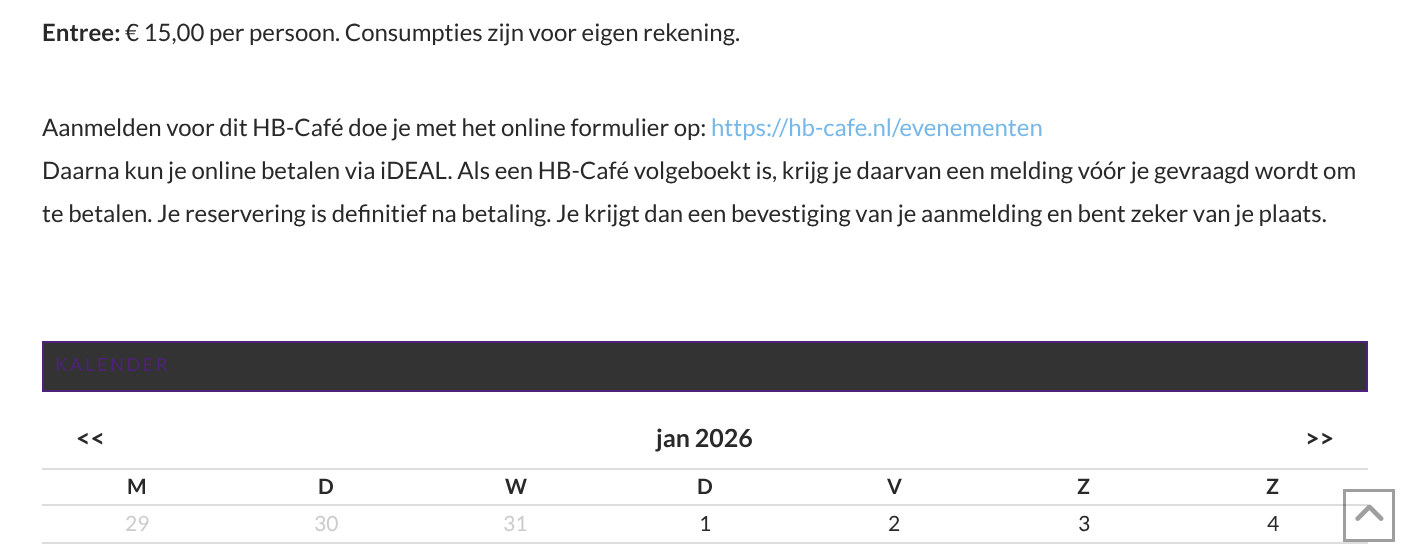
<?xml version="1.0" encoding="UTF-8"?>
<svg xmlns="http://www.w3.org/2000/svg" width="1409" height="556">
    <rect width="100%" height="100%" fill="#FFFFFF"/>
    <text x="42" y="41" font-family="Lato" font-size="24" font-weight="700" fill="#292929">Entree:</text>
    <text x="125" y="41" font-family="Lato" font-size="24" fill="#292929">€ 15,00 per persoon. Consumpties zijn voor eigen rekening.</text>
    <text x="42" y="136" font-family="Lato" font-size="24" fill="#292929">Aanmelden voor dit HB-Café doe je met het online formulier op:</text>
    <text x="711" y="136" font-family="Lato" font-size="24" fill="#77B8E8">https://hb-cafe.nl/evenementen</text>
    <text font-family="Lato" font-size="24" fill="#292929">
        <tspan x="42" y="179">Daarna kun je online betalen via iDEAL. Als een HB-Café volgeboekt is, krijg je daarvan een melding vóór je gevraagd wordt om</tspan>
        <tspan x="42" y="222">te betalen. Je reservering is definitief na betaling. Je krijgt dan een bevestiging van je aanmelding en bent zeker van je plaats.</tspan>
    </text>
    <rect x="43" y="342" width="1324" height="49" fill="#333333" stroke="#50217B" stroke-width="2"/>
    <text x="55" y="371" font-family="Lato" font-size="18" letter-spacing="2.75" fill="#50217B">KALENDER</text>
    <text x="76" y="447" font-family="Lato" font-size="25" font-weight="700" fill="#292929">&lt;&lt;</text>
    <text x="656" y="447" font-family="Lato" font-size="25" font-weight="700" fill="#292929">jan 2026</text>
    <text x="1305" y="447" font-family="Lato" font-size="25" font-weight="700" fill="#292929">&gt;&gt;</text>
    <text x="127" y="494" font-family="Lato" font-size="21" font-weight="700" fill="#292929">M</text>
    <text x="318" y="494" font-family="Lato" font-size="21" font-weight="700" fill="#292929">D</text>
    <text x="505" y="494" font-family="Lato" font-size="21" font-weight="700" fill="#292929">W</text>
    <text x="697" y="494" font-family="Lato" font-size="21" font-weight="700" fill="#292929">D</text>
    <text x="887" y="494" font-family="Lato" font-size="21" font-weight="700" fill="#292929">V</text>
    <text x="1077" y="494" font-family="Lato" font-size="21" font-weight="700" fill="#292929">Z</text>
    <rect x="42" y="468" width="1326" height="2" fill="#DDDDDD"/>
    <text x="1266" y="494" font-family="Lato" font-size="21" font-weight="700" fill="#292929">Z</text>
    <text x="125" y="531" font-family="Lato" font-size="21" fill="#CCCCCC">29</text>
    <text x="314" y="531" font-family="Lato" font-size="21" fill="#CCCCCC">30</text>
    <text x="503" y="531" font-family="Lato" font-size="21" fill="#CCCCCC">31</text>
    <text x="699" y="531" font-family="Lato" font-size="21" fill="#292929">1</text>
    <text x="888" y="531" font-family="Lato" font-size="21" fill="#292929">2</text>
    <text x="1078" y="531" font-family="Lato" font-size="21" fill="#292929">3</text>
    <rect x="42" y="504" width="1326" height="2" fill="#DDDDDD"/>
    <text x="1267" y="531" font-family="Lato" font-size="21" fill="#292929">4</text>
    <rect x="42" y="542" width="1326" height="2" fill="#DDDDDD"/>
    <rect x="1344.5" y="490.5" width="49" height="50" fill="none" stroke="#000000" stroke-opacity="0.38" stroke-width="3"/>
    <image x="1355" y="504" width="29" height="17" href="img_01.png"/>
</svg>
